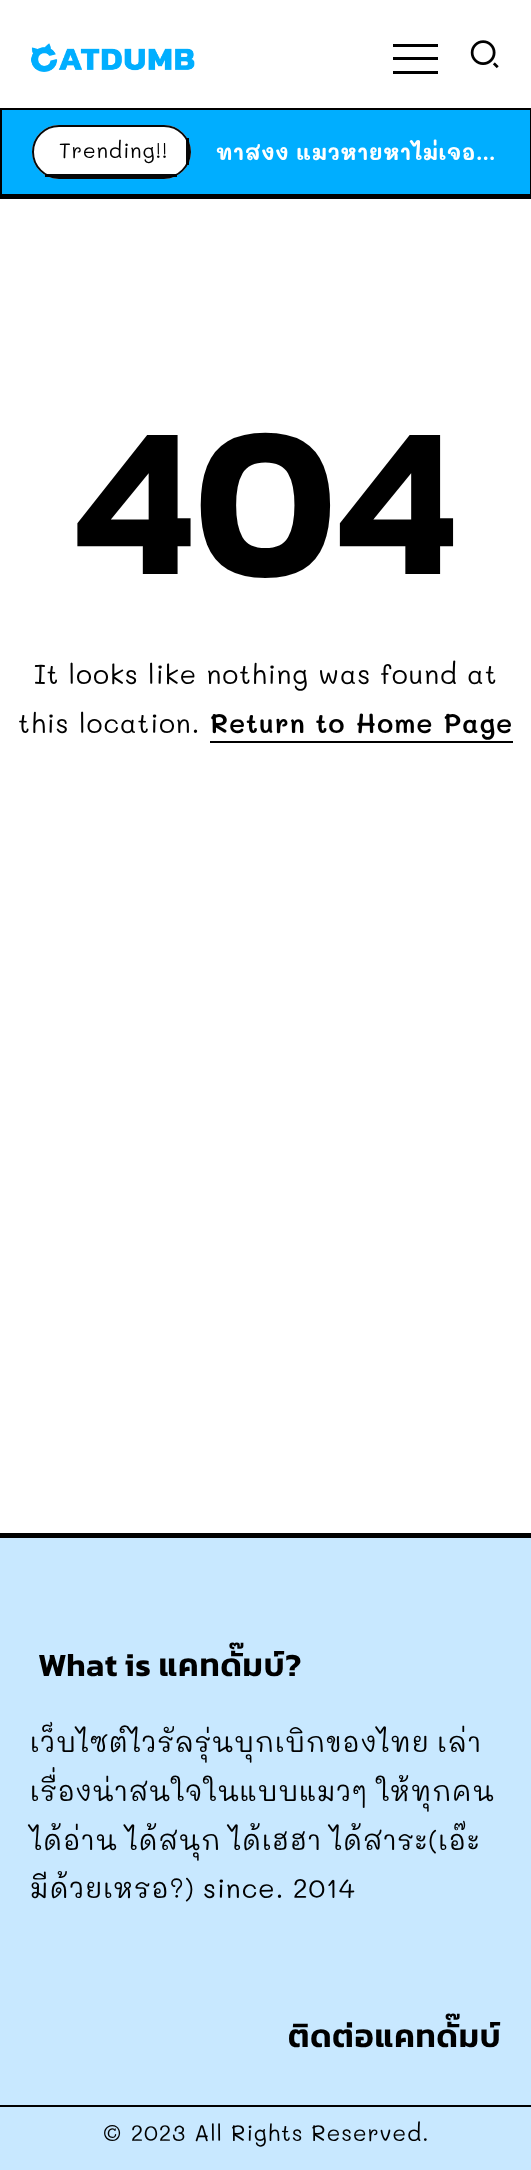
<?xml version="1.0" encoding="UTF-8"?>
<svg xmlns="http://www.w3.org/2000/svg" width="531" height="2170">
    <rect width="100%" height="100%" fill="#FFFFFF"/>
    <image x="31" y="43" width="164" height="29" href="img_01.png"/>
    <rect x="393" y="44" width="45" height="3" fill="#000000"/>
    <rect x="393" y="57" width="45" height="3" fill="#000000"/>
    <rect x="393" y="71" width="45" height="3" fill="#000000"/>
    <image x="470" y="40" width="29" height="29" href="img_02.png"/>
    <rect x="2" y="110" width="528" height="84" fill="#00AEFF"/>
    <rect x="0" y="108" width="531" height="2" fill="#000000"/>
    <rect x="530" y="108" width="1" height="90" fill="#000000"/>
    <rect x="0" y="194" width="531" height="5" fill="#000000"/>
    <rect x="0" y="108" width="2" height="90" fill="#000000"/>
    <rect x="32" y="125" width="159" height="54" rx="27" fill="#FFFFFF"/>
    <rect x="33" y="126" width="157" height="52" rx="26" fill="none" stroke="#000000" stroke-opacity="0.97" stroke-width="2"/>
    <rect x="186" y="138" width="3" height="27" fill="#000000" fill-opacity="0.97"/>
    <rect x="45" y="174" width="132" height="3" fill="#000000" fill-opacity="0.97"/>
    <text x="59" y="158" font-family="Mali" font-size="21" letter-spacing="0.75" fill="#000000">Trending!!</text>
    <text x="216" y="160" word-spacing="-1" font-family="Mali" font-size="21" font-weight="700" letter-spacing="0.75" fill="#FFFFFF">ทาสงง แมวหายหาไม่เจอ…</text>
    <text x="75" y="574" font-family="Kanit" font-size="216" font-weight="600" letter-spacing="0.75" fill="#000000">404</text>
    <text x="34" y="684" font-family="Mali" font-size="27" letter-spacing="0.75" fill="#000000">It looks like nothing was found at</text>
    <text x="18" y="733" font-family="Mali" font-size="27" letter-spacing="0.75" fill="#000000">this location.</text>
    <text x="210" y="733" font-family="Mali" font-size="27" font-weight="600" letter-spacing="0.75" fill="#000000">Return to Home Page</text>
    <rect x="210" y="741" width="303" height="2" fill="#000000"/>
    <rect x="0" y="1538" width="531" height="632" fill="#C8E8FF"/>
    <rect x="0" y="1533" width="531" height="5" fill="#000000"/>
    <text x="38" y="1676" word-spacing="-1" font-family="Kanit" font-size="32.5" font-weight="600" letter-spacing="0.75" fill="#000000">What is แคทดั๊มบ์?</text>
    <text font-family="Mali" font-size="27" letter-spacing="0.75" fill="#000000">
        <tspan x="30" y="1752" word-spacing="-1.5">เว็บไซต์ไวรัลรุ่นบุกเบิกของไทย เล่า</tspan>
        <tspan x="30" y="1801" word-spacing="-1.5">เรื่องน่าสนใจในแบบแมวๆ ให้ทุกคน</tspan>
        <tspan x="30" y="1850" word-spacing="-1.5">ได้อ่าน ได้สนุก ได้เฮฮา ได้สาระ(เอ๊ะ</tspan>
        <tspan x="30" y="1898" word-spacing="-1">มีด้วยเหรอ?) since. 2014</tspan>
    </text>
    <text x="288" y="2047" font-family="Kanit" font-size="32.5" font-weight="600" letter-spacing="0.75" fill="#000000">ติดต่อแคทดั๊มบ์</text>
    <rect x="0" y="2105" width="531" height="2" fill="#000000"/>
    <text x="102" y="2141" font-family="Mali" font-size="22.5" letter-spacing="0.75" fill="#000000">© 2023 All Rights Reserved.</text>
</svg>
